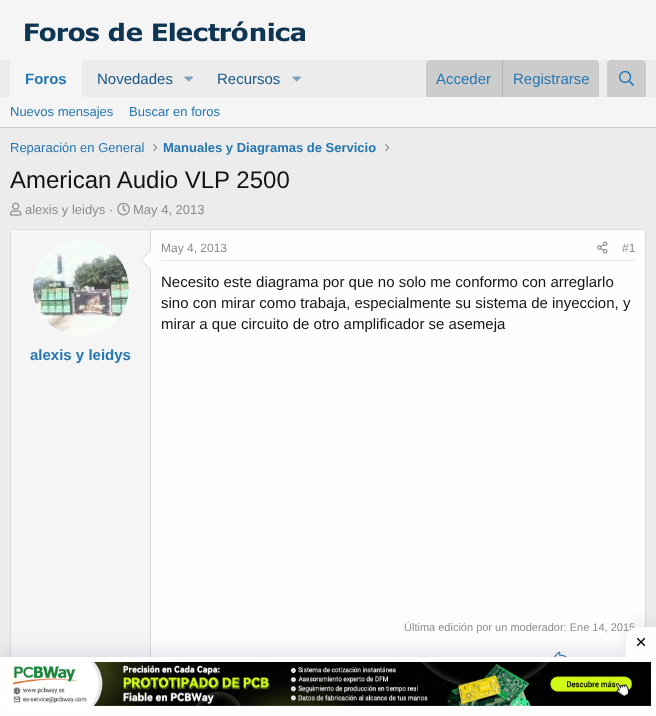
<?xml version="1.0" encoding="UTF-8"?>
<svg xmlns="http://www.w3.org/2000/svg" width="656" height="716">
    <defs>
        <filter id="blur1" x="-50%" y="-200%" width="200%" height="500%"><feGaussianBlur stdDeviation="9"/></filter>
    </defs>
    <rect width="100%" height="100%" fill="#ECECEC"/>
    <rect x="0" y="0" width="656" height="60" fill="#F5F5F5"/>
    <image x="25" y="21" width="280" height="21" href="img_01.png"/>
    <path d="M 12 60 H 80 C 81 60 82 61 82 62 V 97 H 10 V 62 C 10 61 11 60 12 60 Z" fill="#F5F5F5"/>
    <text x="25" y="84" font-family="Liberation Sans" font-size="15" font-weight="700" fill="#2577B1">Foros</text>
    <text x="97" y="84" font-family="Liberation Sans" font-size="15" fill="#185886">Novedades</text>
    <image x="184" y="76" width="9" height="6" href="img_02.png"/>
    <text x="217" y="84" font-family="Liberation Sans" font-size="15" fill="#185886">Recursos</text>
    <image x="292" y="76" width="9" height="6" href="img_02.png"/>
    <path d="M 430 60 H 595 C 597 60 599 62 599 64 V 97 H 426 V 64 C 426 62 428 60 430 60 Z" fill="#CCCCCC"/>
    <text x="436" y="84" font-family="Liberation Sans" font-size="15" fill="#2577B1">Acceder</text>
    <rect x="502" y="60" width="1" height="37" fill="#B0B0B0"/>
    <text x="513" y="84" font-family="Liberation Sans" font-size="15" fill="#2577B1">Registrarse</text>
    <path d="M 611 60 H 642 C 644 60 646 62 646 64 V 97 H 607 V 64 C 607 62 609 60 611 60 Z" fill="#CCCCCC"/>
    <image x="619" y="70" width="15" height="16" href="img_03.png"/>
    <rect x="0" y="97" width="656" height="30" fill="#F5F5F5"/>
    <rect x="0" y="127" width="656" height="1" fill="#CBCBCB"/>
    <text x="10" y="116" font-family="Liberation Sans" font-size="13" fill="#2577B1">Nuevos mensajes</text>
    <text x="129" y="116" font-family="Liberation Sans" font-size="13" fill="#2577B1">Buscar en foros</text>
    <text x="10" y="152" font-family="Liberation Sans" font-size="13" fill="#2577B1">Reparación en General</text>
    <image x="153" y="144" width="5" height="8" href="img_04.png"/>
    <text x="163" y="152" font-family="Liberation Sans" font-size="13" font-weight="700" fill="#2577B1">Manuales y Diagramas de Servicio</text>
    <image x="385" y="144" width="5" height="8" href="img_04.png"/>
    <text x="10" y="188" font-family="Liberation Sans" font-size="24" fill="#141414">American Audio VLP 2500</text>
    <image x="10" y="202" width="12" height="14" href="img_05.png"/>
    <text x="25" y="214" font-family="Liberation Sans" font-size="13" fill="#8C8C8C">alexis y leidys ·</text>
    <image x="117" y="202" width="13" height="14" href="img_06.png"/>
    <text x="133" y="214" font-family="Liberation Sans" font-size="13" fill="#8C8C8C">May 4, 2013</text>
    <rect x="10" y="229" width="636" height="453" rx="4" fill="#FEFEFE"/>
    <path d="M 11.5 230.5 C 12 230 13 229.5 14 229.5 H 642 C 643 229.5 644 230 644.5 230.5" fill="none" stroke="#DFDFDF"/>
    <path d="M 644.5 230.5 C 645 231 645.5 232 645.5 233 V 678 C 645.5 679 645 680 644.5 680.5" fill="none" stroke="#D8D8D8"/>
    <path d="M 11.5 680.5 C 11 680 10.5 679 10.5 678 V 233 C 10.5 232 11 231 11.5 230.5" fill="none" stroke="#D8D8D8"/>
    <path d="M 14 230 H 151 V 681 H 14 C 12.5 681 11 679.5 11 678 V 233 C 11 231.5 12.5 230 14 230 Z" fill="#F5F5F5"/>
    <rect x="150" y="230" width="1" height="427" fill="#D8D8D8"/>
    <circle cx="81" cy="288" r="48" fill="#FEFEFE"/>
    <image x="33" y="240" width="96" height="96" href="img_07.png"/>
    <path d="M 151 250 V 270 L 141 260 Z" fill="#D8D8D8"/>
    <path d="M 151 251 V 269 L 142 260 Z" fill="#FEFEFE"/>
    <text x="30" y="360" font-family="Liberation Sans" font-size="15" font-weight="700" fill="#2577B1">alexis y leidys</text>
    <rect x="161" y="260" width="474" height="1" fill="#E7E7E7"/>
    <text x="161" y="252" font-family="Liberation Sans" font-size="12" fill="#8C8C8C">May 4, 2013</text>
    <image x="597" y="241" width="11" height="13" href="img_08.png"/>
    <text x="622" y="252" font-family="Liberation Sans" font-size="12" fill="#8C8C8C">#1</text>
    <text font-family="Liberation Sans" font-size="15" fill="#141414">
        <tspan x="161" y="287">Necesito este diagrama por que no solo me conformo con arreglarlo</tspan>
        <tspan x="161" y="308">sino con mirar como trabaja, especialmente su sistema de inyeccion, y</tspan>
        <tspan x="161" y="329">mirar a que circuito de otro amplificador se asemeja</tspan>
    </text>
    <text x="404" y="631" font-family="Liberation Sans" font-size="11" fill="#8C8C8C">Última edición por un moderador: Ene 14, 2015</text>
    <image x="554" y="651" width="13" height="6" href="img_09.png"/>
    <rect x="0" y="651" width="656" height="59" fill="#09204C" fill-opacity="0.1" filter="url(#blur1)"/>
    <rect x="0" y="657" width="656" height="59" fill="#FEFEFE"/>
    <rect x="626" y="621" width="30" height="30" rx="12" fill="#09204C" fill-opacity="0.08" filter="url(#blur1)"/>
    <path d="M 638 627 H 656 V 657 H 626 V 639 C 626 632.5 631.5 627 638 627 Z" fill="#FEFEFE"/>
    <image x="636" y="637" width="10" height="10" href="img_10.png"/>
    <image x="5" y="662" width="646" height="44" href="img_11.png"/>
</svg>
